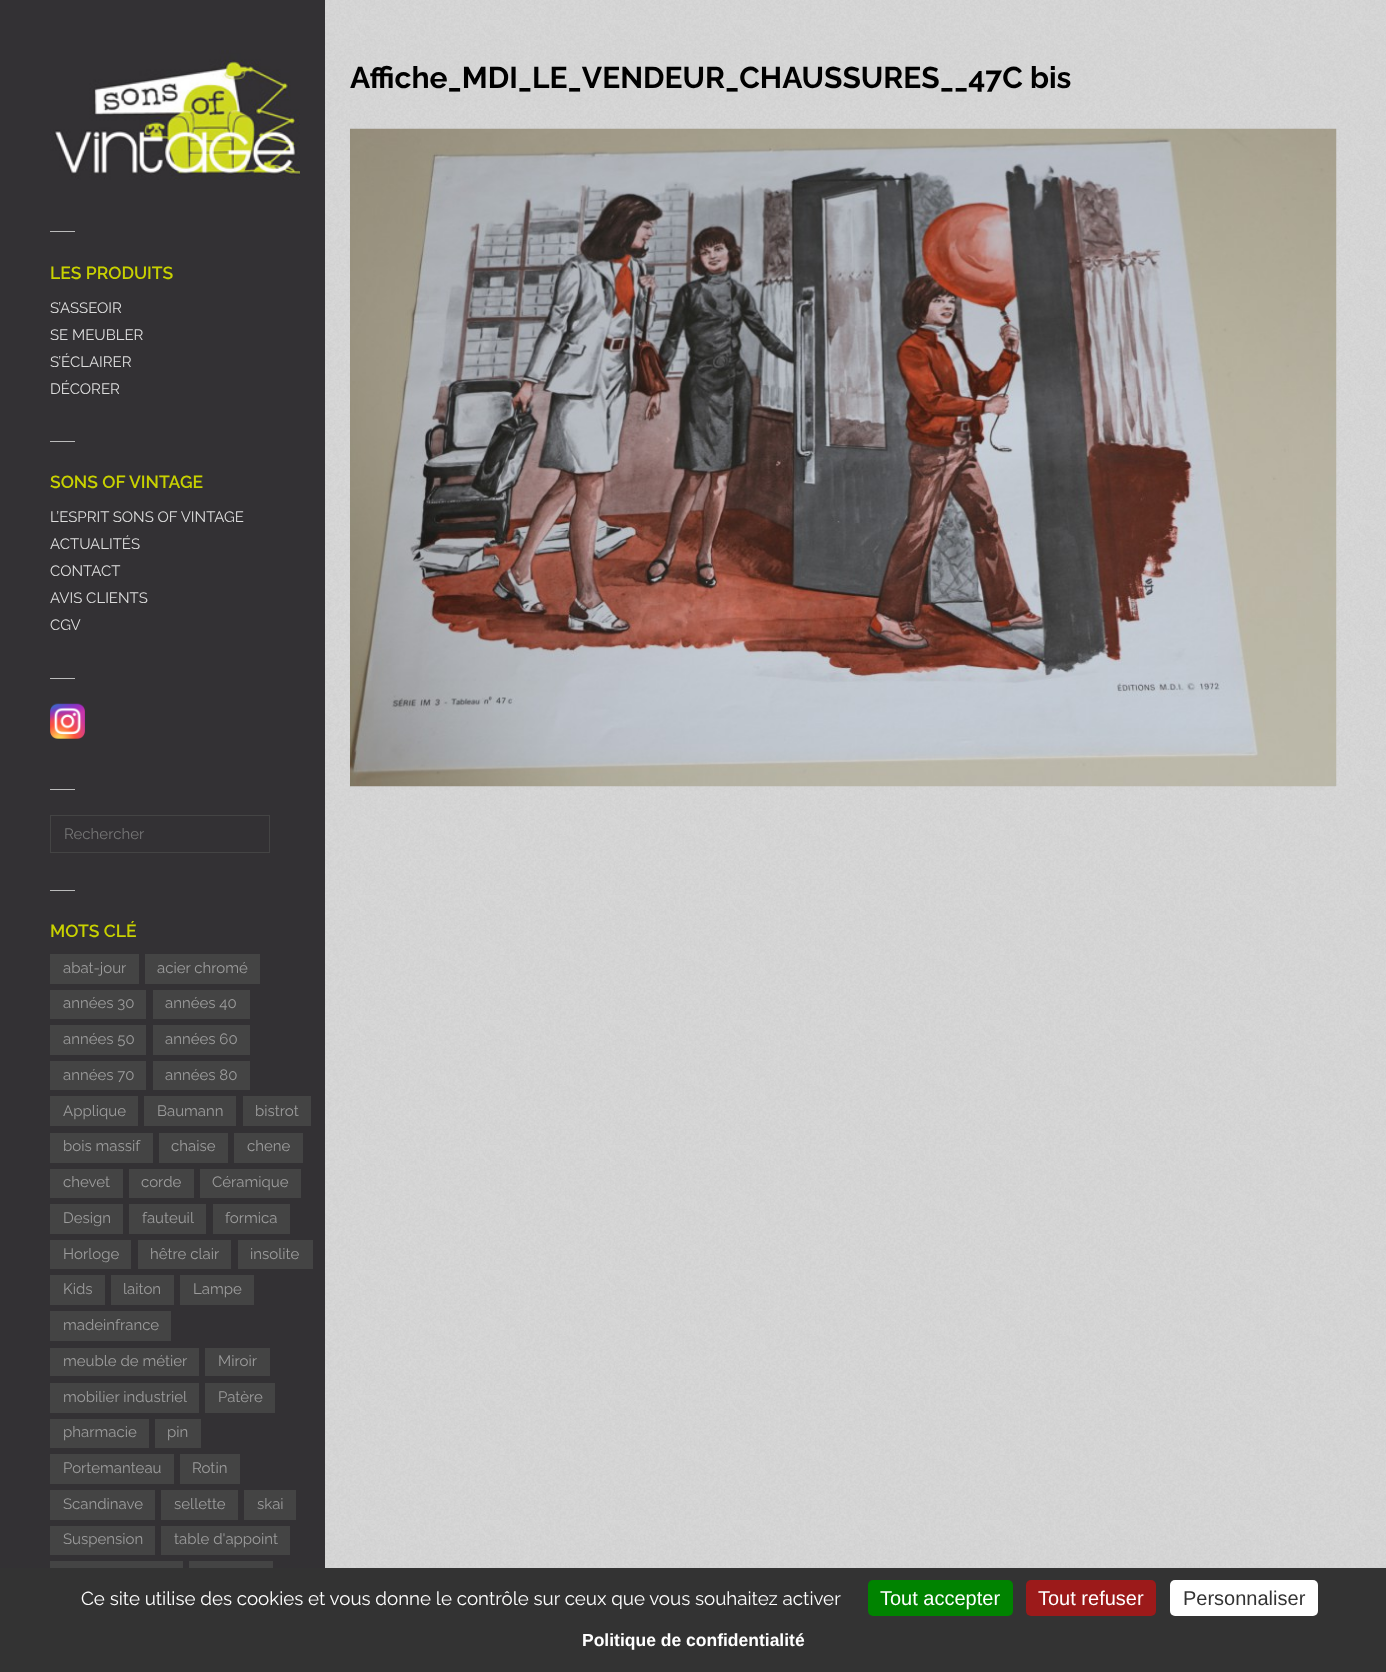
<?xml version="1.0" encoding="UTF-8"?>
<svg xmlns="http://www.w3.org/2000/svg" width="1386" height="1672">
    <rect width="100%" height="100%" fill="#D8D8D8"/>
    <image x="325" y="0" width="1061" height="1568" href="img_01.png"/>
    <text x="350" y="88" font-family="Raleway" font-size="30" font-weight="700" fill="#000000">Affiche_MDI_LE_VENDEUR_CHAUSSURES__47C bis</text>
    <image x="350" y="128" width="987" height="659" href="img_02.png"/>
    <rect x="0" y="0" width="325" height="1568" fill="#333134"/>
    <image x="50" y="50" width="250" height="130" href="img_03.png"/>
    <rect x="50" y="231" width="25" height="1" fill="#BBBBBB"/>
    <text x="50" y="279" font-family="Raleway" font-size="17.5" font-weight="600" fill="#C8D100">LES PRODUITS</text>
    <text font-family="Raleway" font-size="15" fill="#DEDEDE">
        <tspan x="50" y="313">S’ASSEOIR</tspan>
        <tspan x="50" y="340">SE MEUBLER</tspan>
        <tspan x="50" y="367">S’ÉCLAIRER</tspan>
        <tspan x="50" y="394">DÉCORER</tspan>
    </text>
    <rect x="50" y="441" width="25" height="1" fill="#BBBBBB"/>
    <text x="50" y="488" font-family="Raleway" font-size="17.5" font-weight="600" fill="#C8D100">SONS OF VINTAGE</text>
    <text font-family="Raleway" font-size="15" fill="#DEDEDE">
        <tspan x="50" y="522">L’ESPRIT SONS OF VINTAGE</tspan>
        <tspan x="50" y="549">ACTUALITÉS</tspan>
        <tspan x="50" y="576">CONTACT</tspan>
        <tspan x="50" y="603">AVIS CLIENTS</tspan>
        <tspan x="50" y="630">CGV</tspan>
    </text>
    <rect x="50" y="678" width="25" height="1" fill="#BBBBBB"/>
    <image x="50" y="703" width="35" height="36" href="img_04.png"/>
    <rect x="50" y="789" width="25" height="1" fill="#BBBBBB"/>
    <rect x="50.5" y="815.5" width="219" height="37" fill="none" stroke="#444444"/>
    <text x="64" y="839" font-family="Raleway" font-size="15" fill="#757575">Rechercher</text>
    <rect x="50" y="890" width="25" height="1" fill="#BBBBBB"/>
    <text x="50" y="937" font-family="Raleway" font-size="17.5" font-weight="600" fill="#C8D100">MOTS CLÉ</text>
    <rect x="50" y="954" width="89" height="30" fill="#444444"/>
    <text x="63" y="973" font-family="Raleway" font-size="15" fill="#9C9C9C">abat-jour</text>
    <rect x="145" y="954" width="115" height="30" fill="#444444"/>
    <text x="157" y="973" font-family="Raleway" font-size="15" fill="#9C9C9C">acier chromé</text>
    <rect x="50" y="990" width="96" height="29" fill="#444444"/>
    <text x="63" y="1008" font-family="Raleway" font-size="15" fill="#9C9C9C">années 30</text>
    <rect x="153" y="990" width="97" height="29" fill="#444444"/>
    <text x="165" y="1008" font-family="Raleway" font-size="15" fill="#9C9C9C">années 40</text>
    <rect x="50" y="1025" width="96" height="30" fill="#444444"/>
    <text x="63" y="1044" font-family="Raleway" font-size="15" fill="#9C9C9C">années 50</text>
    <rect x="153" y="1025" width="97" height="30" fill="#444444"/>
    <text x="165" y="1044" font-family="Raleway" font-size="15" fill="#9C9C9C">années 60</text>
    <rect x="50" y="1061" width="96" height="29" fill="#444444"/>
    <text x="63" y="1080" font-family="Raleway" font-size="15" fill="#9C9C9C">années 70</text>
    <rect x="153" y="1061" width="97" height="29" fill="#444444"/>
    <text x="165" y="1080" font-family="Raleway" font-size="15" fill="#9C9C9C">années 80</text>
    <rect x="50" y="1096" width="88" height="30" fill="#444444"/>
    <text x="63" y="1116" font-family="Raleway" font-size="15" fill="#9C9C9C">Applique</text>
    <rect x="144" y="1096" width="92" height="30" fill="#444444"/>
    <text x="157" y="1116" font-family="Raleway" font-size="15" fill="#9C9C9C">Baumann</text>
    <rect x="243" y="1096" width="68" height="30" fill="#444444"/>
    <text x="255" y="1116" font-family="Raleway" font-size="15" fill="#9C9C9C">bistrot</text>
    <rect x="50" y="1133" width="103" height="30" fill="#444444"/>
    <text x="63" y="1151" font-family="Raleway" font-size="15" fill="#9C9C9C">bois massif</text>
    <rect x="159" y="1133" width="69" height="30" fill="#444444"/>
    <text x="171" y="1151" font-family="Raleway" font-size="15" fill="#9C9C9C">chaise</text>
    <rect x="234" y="1133" width="69" height="30" fill="#444444"/>
    <text x="247" y="1151" font-family="Raleway" font-size="15" fill="#9C9C9C">chene</text>
    <rect x="50" y="1169" width="73" height="29" fill="#444444"/>
    <text x="63" y="1187" font-family="Raleway" font-size="15" fill="#9C9C9C">chevet</text>
    <rect x="129" y="1169" width="65" height="29" fill="#444444"/>
    <text x="141" y="1187" font-family="Raleway" font-size="15" fill="#9C9C9C">corde</text>
    <rect x="200" y="1169" width="101" height="29" fill="#444444"/>
    <text x="212" y="1187" font-family="Raleway" font-size="15" fill="#9C9C9C">Céramique</text>
    <rect x="50" y="1204" width="73" height="30" fill="#444444"/>
    <text x="63" y="1223" font-family="Raleway" font-size="15" fill="#9C9C9C">Design</text>
    <rect x="129" y="1204" width="77" height="30" fill="#444444"/>
    <text x="142" y="1223" font-family="Raleway" font-size="15" fill="#9C9C9C">fauteuil</text>
    <rect x="213" y="1204" width="77" height="30" fill="#444444"/>
    <text x="225" y="1223" font-family="Raleway" font-size="15" fill="#9C9C9C">formica</text>
    <rect x="50" y="1240" width="81" height="29" fill="#444444"/>
    <text x="63" y="1259" font-family="Raleway" font-size="15" fill="#9C9C9C">Horloge</text>
    <rect x="138" y="1240" width="93" height="29" fill="#444444"/>
    <text x="150" y="1259" font-family="Raleway" font-size="15" fill="#9C9C9C">hêtre clair</text>
    <rect x="238" y="1240" width="75" height="29" fill="#444444"/>
    <text x="250" y="1259" font-family="Raleway" font-size="15" fill="#9C9C9C">insolite</text>
    <rect x="50" y="1275" width="55" height="30" fill="#444444"/>
    <text x="63" y="1294" font-family="Raleway" font-size="15" fill="#9C9C9C">Kids</text>
    <rect x="111" y="1275" width="63" height="30" fill="#444444"/>
    <text x="123" y="1294" font-family="Raleway" font-size="15" fill="#9C9C9C">laiton</text>
    <rect x="180" y="1275" width="74" height="30" fill="#444444"/>
    <text x="193" y="1294" font-family="Raleway" font-size="15" fill="#9C9C9C">Lampe</text>
    <rect x="50" y="1311" width="121" height="30" fill="#444444"/>
    <text x="63" y="1330" font-family="Raleway" font-size="15" fill="#9C9C9C">madeinfrance</text>
    <rect x="50" y="1348" width="149" height="28" fill="#444444"/>
    <text x="63" y="1366" font-family="Raleway" font-size="15" fill="#9C9C9C">meuble de métier</text>
    <rect x="205" y="1348" width="65" height="28" fill="#444444"/>
    <text x="218" y="1366" font-family="Raleway" font-size="15" fill="#9C9C9C">Miroir</text>
    <rect x="50" y="1383" width="149" height="30" fill="#444444"/>
    <text x="63" y="1402" font-family="Raleway" font-size="15" fill="#9C9C9C">mobilier industriel</text>
    <rect x="205" y="1383" width="70" height="30" fill="#444444"/>
    <text x="218" y="1402" font-family="Raleway" font-size="15" fill="#9C9C9C">Patère</text>
    <rect x="50" y="1419" width="99" height="29" fill="#444444"/>
    <text x="63" y="1437" font-family="Raleway" font-size="15" fill="#9C9C9C">pharmacie</text>
    <rect x="155" y="1419" width="46" height="29" fill="#444444"/>
    <text x="167" y="1437" font-family="Raleway" font-size="15" fill="#9C9C9C">pin</text>
    <rect x="50" y="1454" width="124" height="30" fill="#444444"/>
    <text x="63" y="1473" font-family="Raleway" font-size="15" fill="#9C9C9C">Portemanteau</text>
    <rect x="180" y="1454" width="60" height="30" fill="#444444"/>
    <text x="192" y="1473" font-family="Raleway" font-size="15" fill="#9C9C9C">Rotin</text>
    <rect x="50" y="1490" width="105" height="30" fill="#444444"/>
    <text x="63" y="1509" font-family="Raleway" font-size="15" fill="#9C9C9C">Scandinave</text>
    <rect x="161" y="1490" width="77" height="30" fill="#444444"/>
    <text x="174" y="1509" font-family="Raleway" font-size="15" fill="#9C9C9C">sellette</text>
    <rect x="244" y="1490" width="52" height="30" fill="#444444"/>
    <text x="257" y="1509" font-family="Raleway" font-size="15" fill="#9C9C9C">skai</text>
    <rect x="50" y="1526" width="105" height="29" fill="#444444"/>
    <text x="63" y="1544" font-family="Raleway" font-size="15" fill="#9C9C9C">Suspension</text>
    <rect x="161" y="1526" width="129" height="29" fill="#444444"/>
    <text x="174" y="1544" font-family="Raleway" font-size="15" fill="#9C9C9C">table d'appoint</text>
    <rect x="50" y="1561" width="133" height="7" fill="#444444"/>
    <rect x="189" y="1561" width="84" height="7" fill="#444444"/>
    <rect x="0" y="1568" width="1386" height="104" fill="#333333"/>
    <text x="81" y="1605" font-family="Raleway" font-size="18.75" fill="#FFFFFF">Ce site utilise des cookies et vous donne le contrôle sur ceux que vous souhaitez activer</text>
    <rect x="868" y="1580" width="145" height="36" rx="5" fill="#008300"/>
    <text x="880" y="1605" font-family="Liberation Sans" font-size="20" fill="#FFFFFF">Tout accepter</text>
    <rect x="1026" y="1580" width="130" height="36" rx="5" fill="#9C1A1A"/>
    <text x="1038" y="1605" font-family="Liberation Sans" font-size="20" fill="#FFFFFF">Tout refuser</text>
    <rect x="1170" y="1580" width="148" height="36" rx="5" fill="#FFFFFF"/>
    <text x="1183" y="1605" font-family="Liberation Sans" font-size="20" fill="#333333">Personnaliser</text>
    <text x="582" y="1646" font-family="Liberation Sans" font-size="17.5" font-weight="700" fill="#FFFFFF">Politique de confidentialité</text>
</svg>
